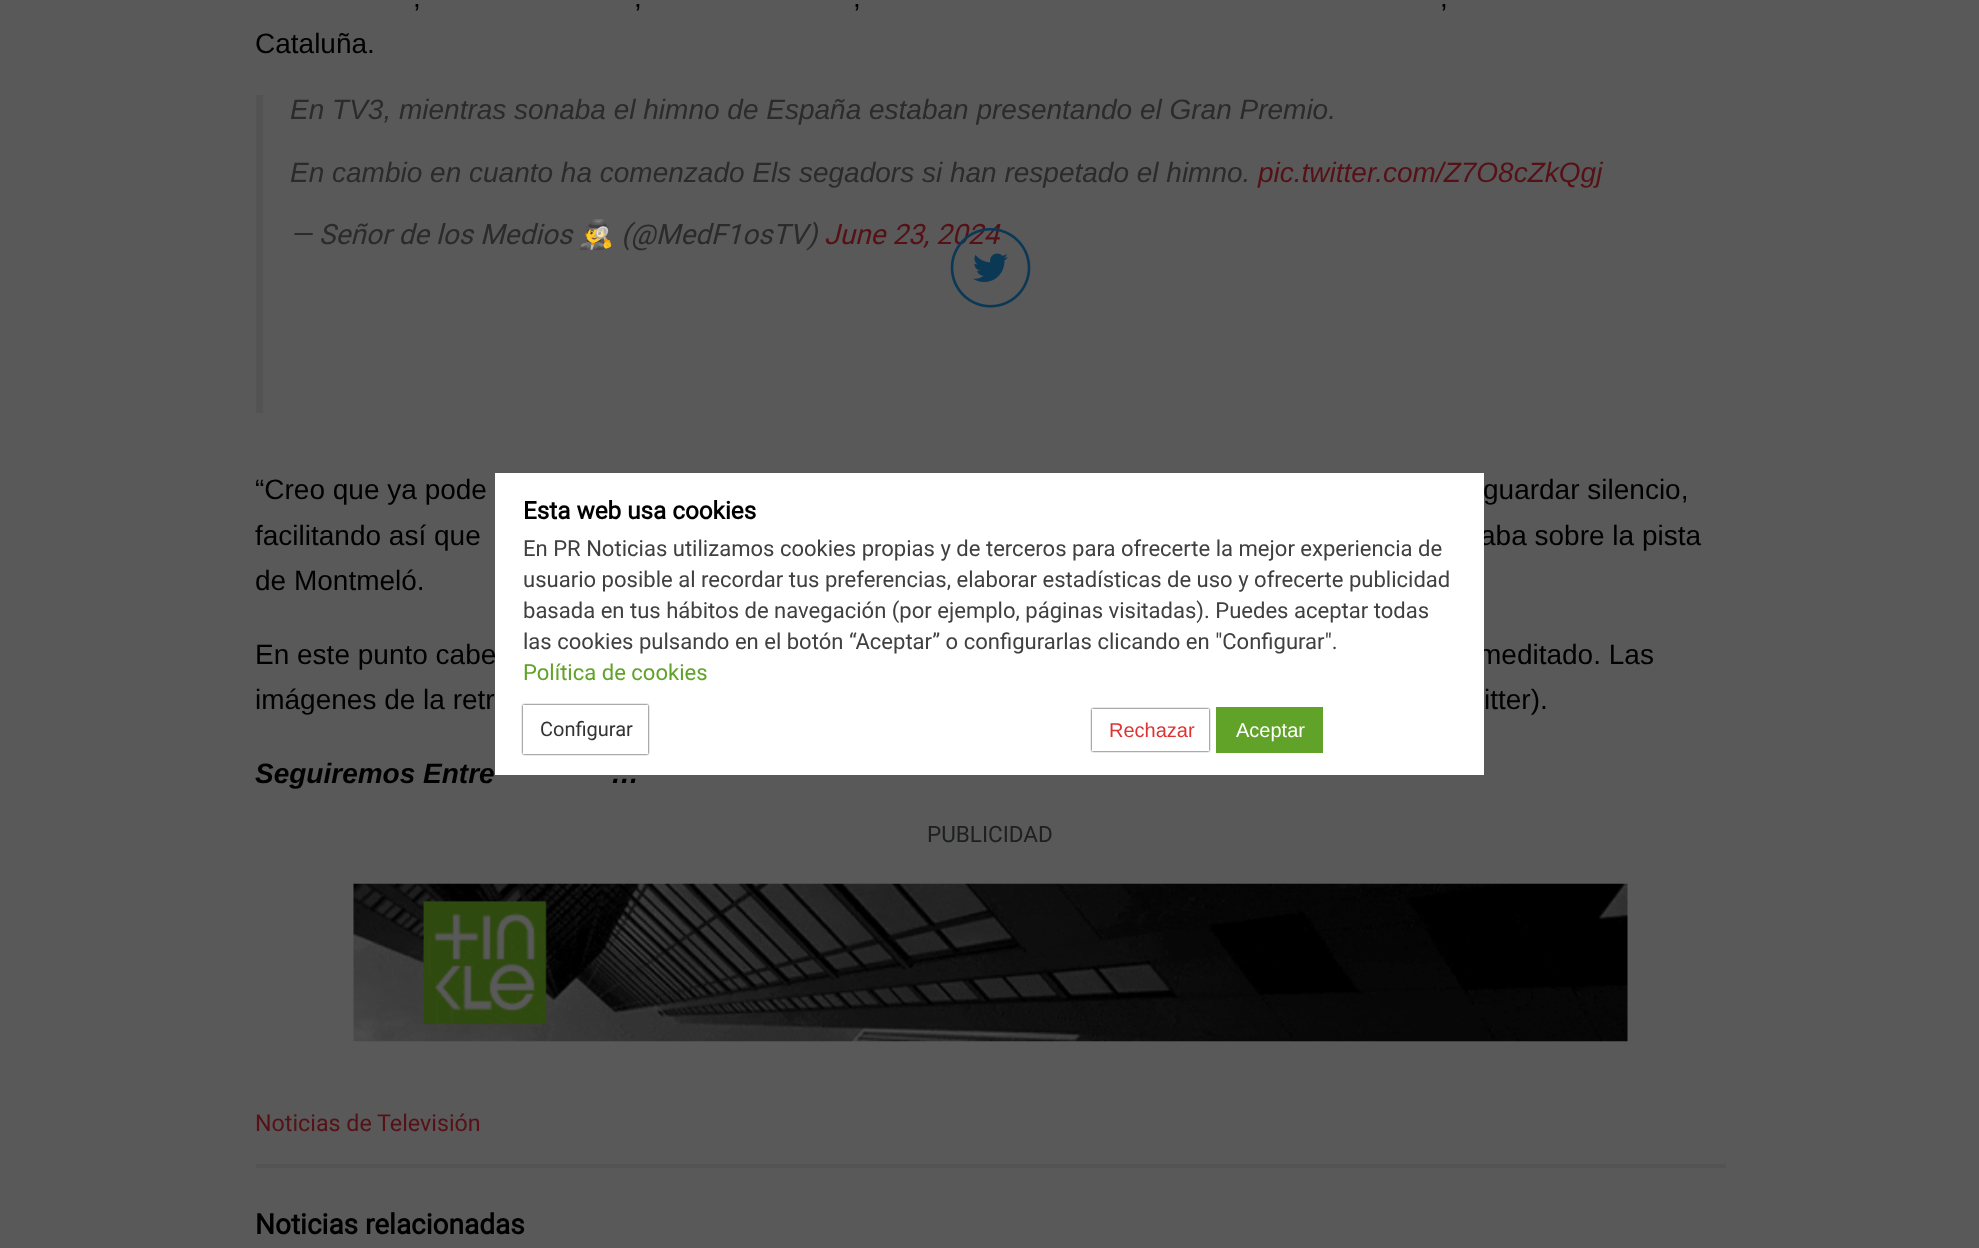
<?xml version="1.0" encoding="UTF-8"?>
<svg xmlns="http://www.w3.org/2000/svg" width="1979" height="1248">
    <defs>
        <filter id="blur1" x="-50%" y="-200%" width="200%" height="500%"><feGaussianBlur stdDeviation="1"/></filter>
    </defs>
    <rect width="100%" height="100%" fill="#595959"/>
    <text x="413" y="7" font-family="Liberation Sans" font-size="28" fill="#000000">,</text>
    <text x="634" y="7" font-family="Liberation Sans" font-size="28" fill="#000000">,</text>
    <text x="853" y="7" font-family="Liberation Sans" font-size="28" fill="#000000">,</text>
    <text x="1440" y="7" font-family="Liberation Sans" font-size="28" fill="#000000">,</text>
    <text x="255" y="53" font-family="Liberation Sans" font-size="28" fill="#000000">Cataluña.</text>
    <rect x="256" y="95" width="7" height="318" fill="#535353"/>
    <text x="290" y="119" font-family="Liberation Sans" font-size="28" font-style="italic" fill="#2B2B2B">En TV3, mientras sonaba el himno de España estaban presentando el Gran Premio.</text>
    <text x="290" y="182" font-family="Liberation Sans" font-size="28" font-style="italic" fill="#2B2B2B">En cambio en cuanto ha comenzado Els segadors si han respetado el himno.</text>
    <text x="1258" y="182" font-family="Liberation Sans" font-size="28" font-style="italic" fill="#561116">pic.twitter.com/Z7O8cZkQgj</text>
    <text x="290" y="244" font-family="Roboto" font-size="28" font-style="italic" fill="#2B2B2B">— Señor de los Medios</text>
    <text x="579" y="244" font-family="Noto Color Emoji" font-size="28" font-style="italic" fill="#2B2B2B">🕵️‍♂️</text>
    <text x="621" y="244" font-family="Roboto" font-size="28" font-style="italic" fill="#2B2B2B">(@MedF1osTV)</text>
    <text x="824" y="244" font-family="Roboto" font-size="28" font-style="italic" fill="#561116">June 23, 2024</text>
    <image x="973" y="253" width="35" height="29" href="img_02.png"/>
    <image x="950" y="227" width="81" height="81" href="img_01.png"/>
    <text x="255" y="499" font-family="Liberation Sans" font-size="28" fill="#000000">“Creo que ya pode</text>
    <text x="1483" y="499" font-family="Liberation Sans" font-size="28" fill="#000000">guardar silencio,</text>
    <text x="255" y="545" font-family="Liberation Sans" font-size="28" fill="#000000">facilitando así que</text>
    <text x="1480" y="545" font-family="Liberation Sans" font-size="28" fill="#000000">aba sobre la pista</text>
    <text x="255" y="590" font-family="Liberation Sans" font-size="28" fill="#000000">de Montmeló.</text>
    <text x="255" y="664" font-family="Liberation Sans" font-size="28" fill="#000000">En este punto cabe</text>
    <text x="1478" y="664" font-family="Liberation Sans" font-size="28" fill="#000000">meditado. Las</text>
    <text x="255" y="709" font-family="Liberation Sans" font-size="28" fill="#000000">imágenes de la retr</text>
    <text x="1484" y="709" font-family="Liberation Sans" font-size="28" fill="#000000">itter).</text>
    <text x="255" y="783" font-family="Liberation Sans" font-size="28" font-weight="700" font-style="italic" fill="#000000">Seguiremos Entre</text>
    <text x="611" y="783" font-family="Liberation Sans" font-size="28" font-weight="700" font-style="italic" fill="#000000">…</text>
    <text x="927" y="842" font-family="Roboto" font-size="22.5" fill="#1D1F20">PUBLICIDAD</text>
    <image x="353" y="883" width="1275" height="159" href="img_03.png"/>
    <rect x="256" y="1164" width="1470" height="4" fill="#535353"/>
    <text x="255" y="1131" font-family="Roboto" font-size="23.25" fill="#561116">Noticias de Televisión</text>
    <text x="255" y="1234" font-family="Roboto" font-size="28" font-weight="700" fill="#000000">Noticias relacionadas</text>
    <rect x="495" y="473" width="989" height="302" fill="#FFFFFF"/>
    <text x="523" y="519" font-family="Roboto" font-size="24.25" font-weight="700" fill="#000000">Esta web usa cookies</text>
    <text font-family="Roboto" font-size="22.05" fill="#404040">
        <tspan x="523" y="556">En PR Noticias utilizamos cookies propias y de terceros para ofrecerte la mejor experiencia de</tspan>
        <tspan x="523" y="587">usuario posible al recordar tus preferencias, elaborar estadísticas de uso y ofrecerte publicidad</tspan>
        <tspan x="523" y="618">basada en tus hábitos de navegación (por ejemplo, páginas visitadas). Puedes aceptar todas</tspan>
        <tspan x="523" y="649">las cookies pulsando en el botón “Aceptar” o configurarlas clicando en "Configurar".</tspan>
    </text>
    <text x="523" y="680" font-family="Roboto" font-size="22.05" fill="#61A229">Política de cookies</text>
    <rect x="523" y="705" width="125" height="49" fill="#000000" filter="url(#blur1)"/>
    <rect x="523" y="705" width="125" height="49" fill="#FFFFFF"/>
    <text x="540" y="736" font-family="Roboto" font-size="20" fill="#333333">Configurar</text>
    <rect x="1092" y="709" width="117" height="42" fill="#000000" filter="url(#blur1)"/>
    <rect x="1092" y="709" width="117" height="42" fill="#FFFFFF"/>
    <text x="1109" y="737" font-family="Liberation Sans" font-size="20" fill="#DD3333">Rechazar</text>
    <rect x="1217" y="708" width="105" height="44" fill="none" stroke="#61A229" stroke-width="2"/>
    <rect x="1218" y="709" width="103" height="42" fill="#61A229"/>
    <text x="1236" y="737" font-family="Liberation Sans" font-size="20" fill="#FFFFFF">Aceptar</text>
</svg>
